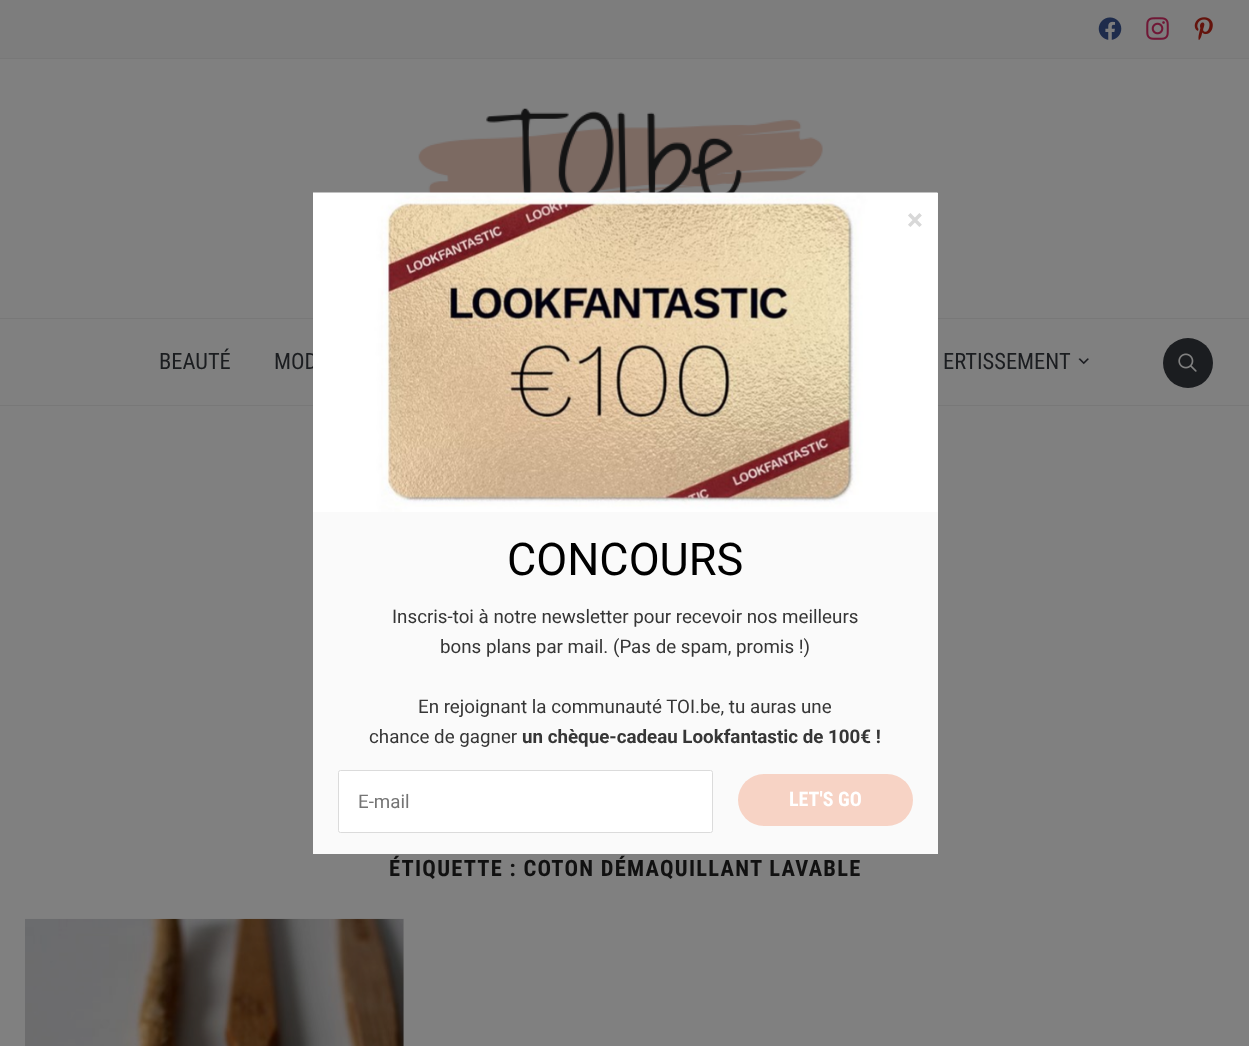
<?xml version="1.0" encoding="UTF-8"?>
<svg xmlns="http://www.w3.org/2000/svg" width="1249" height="1046">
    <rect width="100%" height="100%" fill="#808080"/>
    <rect x="0" y="318" width="1249" height="1" fill="#787878"/>
    <rect x="0" y="405" width="1249" height="1" fill="#787878"/>
    <text x="274" y="369" font-family="Roboto Condensed" font-size="22.5" fill="#1B1D20">MOD</text>
    <rect x="313" y="193" width="625" height="661" fill="#FAFAFA"/>
    <image x="418" y="108" width="405" height="85" href="img_05.png"/>
    <image x="313" y="192" width="625" height="320" href="img_01.png"/>
    <text x="907" y="230" font-family="Roboto" font-size="30" font-weight="700" fill="#D8D8D8">×</text>
    <text x="507" y="575" font-family="Roboto" font-size="45" fill="#000000">CONCOURS</text>
    <text x="392" y="623" font-family="Roboto" font-size="18.75" fill="#363636">Inscris-toi à notre newsletter pour recevoir nos meilleurs</text>
    <text x="440" y="653" font-family="Roboto" font-size="18.75" fill="#363636">bons plans par mail. (Pas de spam, promis !)</text>
    <text x="418" y="713" font-family="Roboto" font-size="18.75" fill="#363636">En rejoignant la communauté TOI.be, tu auras une</text>
    <text x="369" y="743" font-family="Roboto" font-size="18.75" fill="#363636">chance de gagner</text>
    <text x="522" y="743" font-family="Roboto" font-size="18.75" font-weight="700" fill="#363636">un chèque-cadeau Lookfantastic de 100€ !</text>
    <rect x="338.5" y="770.5" width="374" height="62" rx="2" fill="#FFFFFF" stroke="#DBDBDB"/>
    <text x="358" y="808" font-family="Roboto" font-size="18.75" fill="#757575">E-mail</text>
    <rect x="738" y="774" width="175" height="52" rx="26" fill="#F7D3C5"/>
    <text x="789" y="806" font-family="Roboto Condensed" font-size="20" font-weight="700" fill="#FFFFFF">LET'S GO</text>
    <rect x="0" y="0" width="1249" height="58" fill="#7D7D7D"/>
    <rect x="0" y="58" width="1249" height="1" fill="#787878"/>
    <image x="1098" y="17" width="24" height="23" href="img_02.png"/>
    <image x="1146" y="17" width="23" height="23" href="img_03.png"/>
    <image x="1194" y="17" width="19" height="23" href="img_04.png"/>
    <text x="159" y="369" font-family="Roboto Condensed" font-size="22.5" fill="#1B1D20">BEAUTÉ</text>
    <text x="943" y="369" font-family="Roboto Condensed" font-size="22.5" fill="#1B1D20">ERTISSEMENT</text>
    <image x="1078" y="358" width="11" height="7" href="img_06.png"/>
    <circle cx="1188" cy="363" r="25" fill="#1B1D20"/>
    <image x="1178" y="353" width="19" height="19" href="img_07.png"/>
    <text x="389" y="876" font-family="Roboto Condensed" font-size="22.5" font-weight="700" letter-spacing="1.25" fill="#111111">ÉTIQUETTE : COTON DÉMAQUILLANT LAVABLE</text>
    <image x="25" y="918" width="379" height="128" href="img_08.png"/>
</svg>
